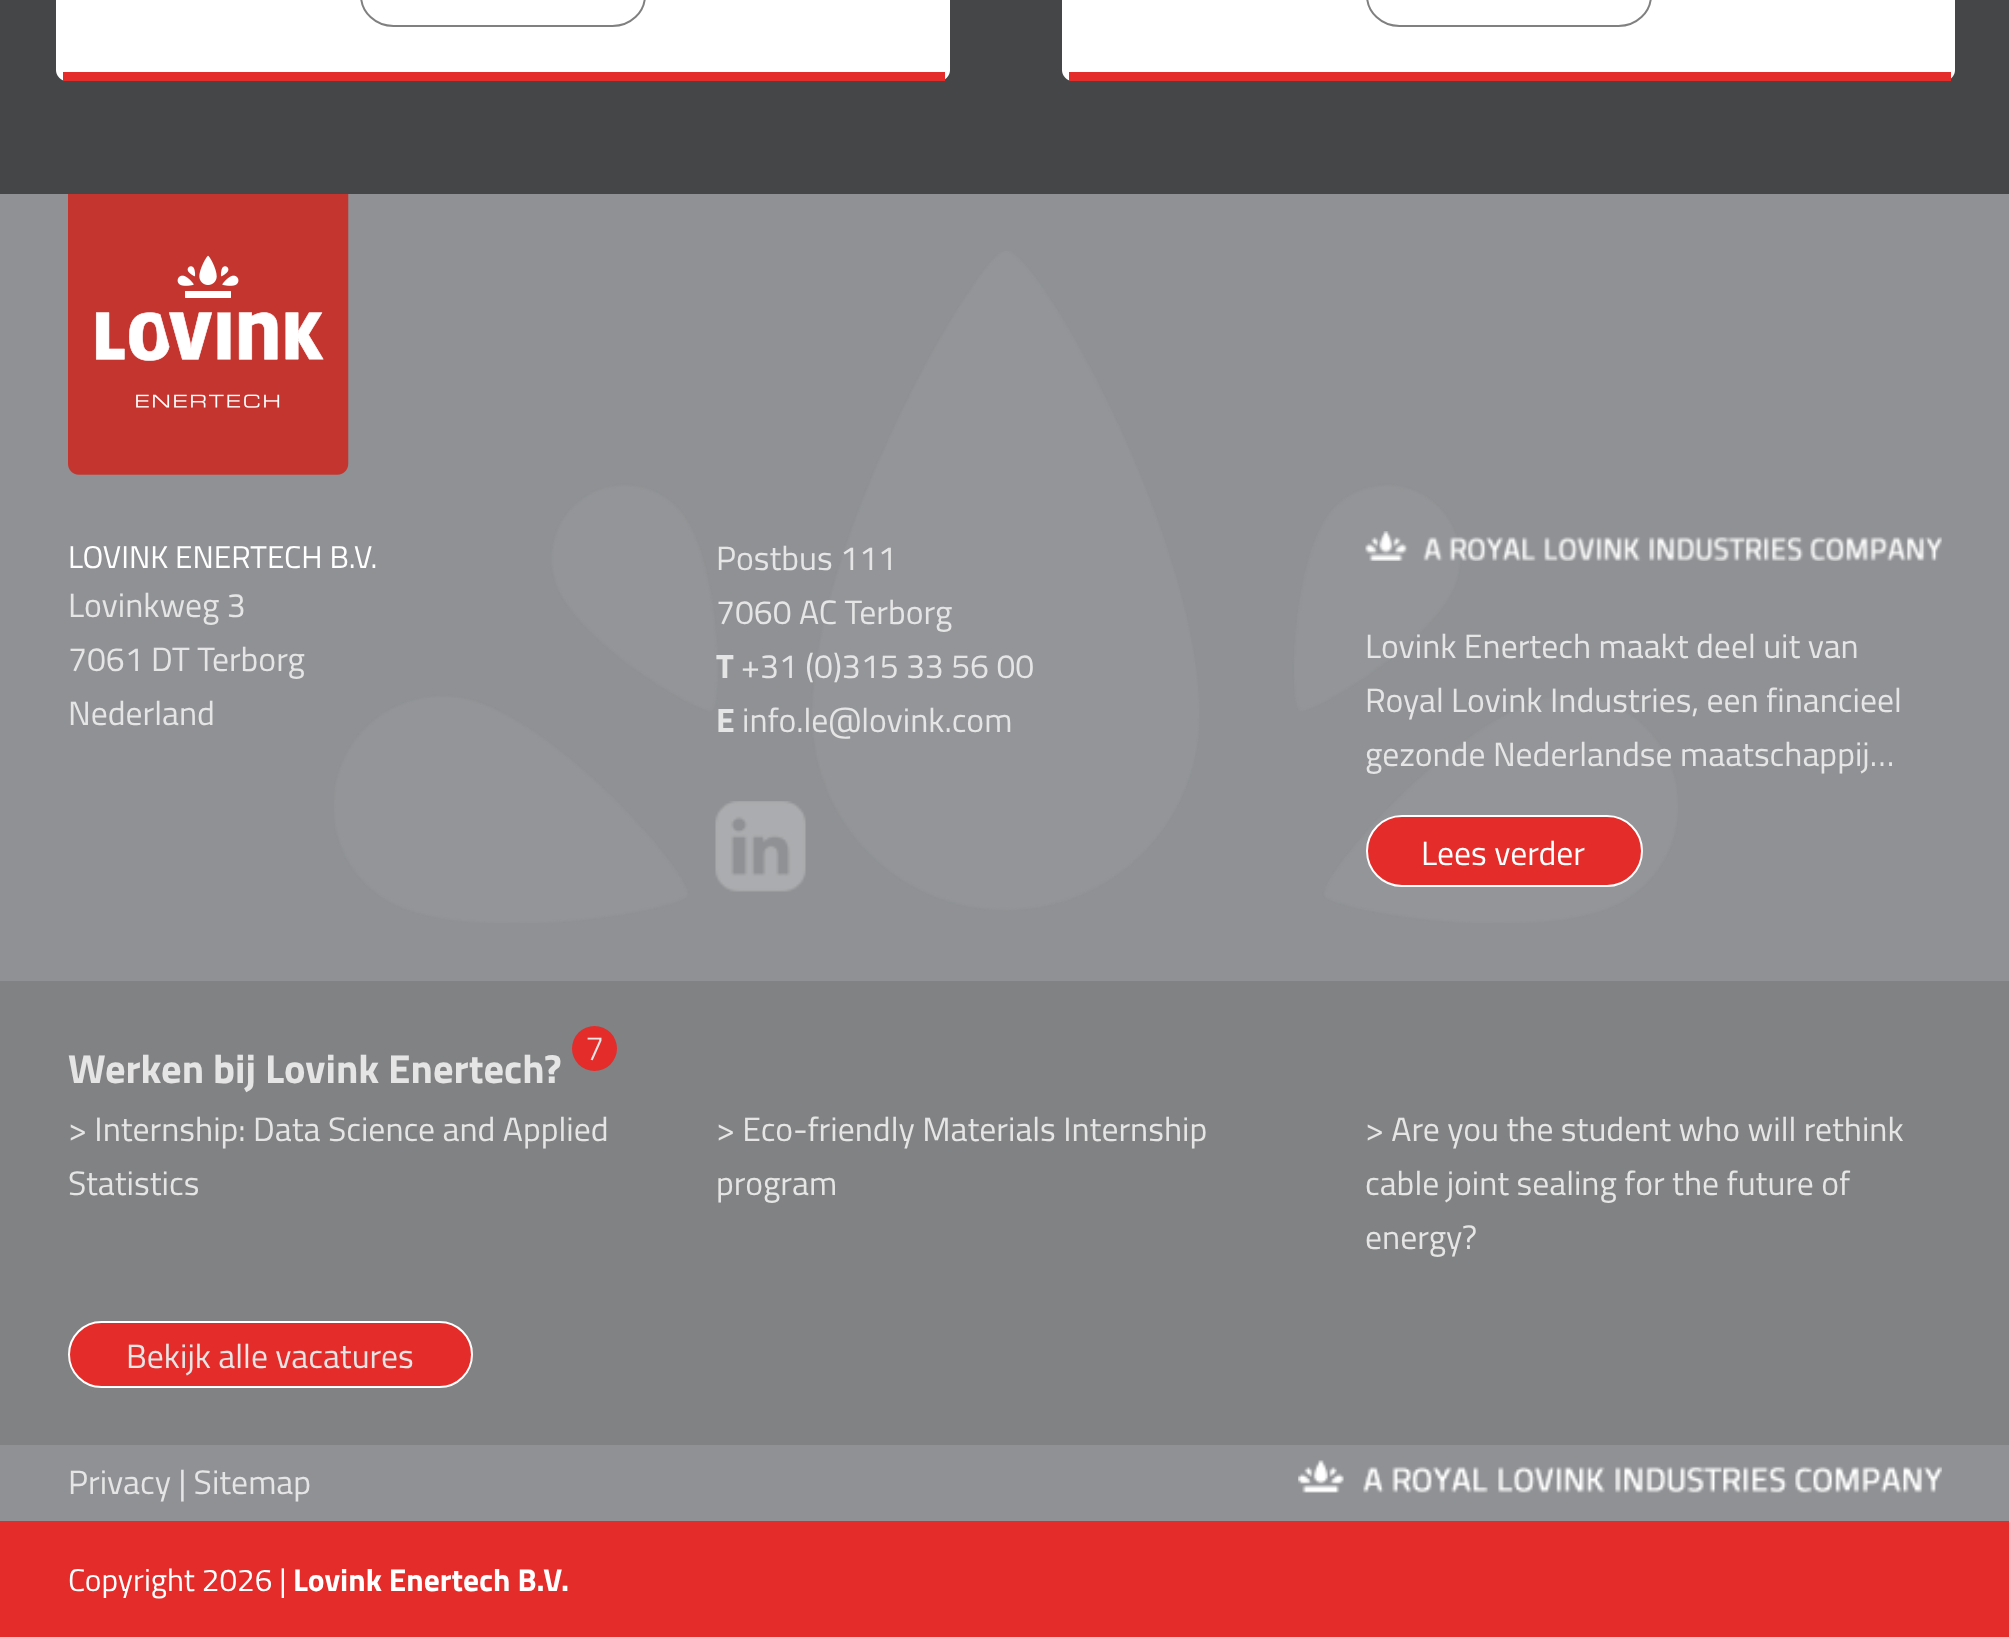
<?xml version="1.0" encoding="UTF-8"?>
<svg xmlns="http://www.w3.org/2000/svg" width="2009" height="1637">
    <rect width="100%" height="100%" fill="#454647"/>
    <rect x="56" y="-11" width="894" height="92" rx="11" fill="#FFFFFF"/>
    <rect x="63" y="72" width="882" height="9" fill="#E42C2A"/>
    <rect x="361" y="-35" width="284" height="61" rx="32.5" fill="none" stroke="#808080" stroke-width="2"/>
    <rect x="1062" y="-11" width="893" height="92" rx="11" fill="#FFFFFF"/>
    <rect x="1069" y="72" width="882" height="9" fill="#E42C2A"/>
    <rect x="1367" y="-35" width="284" height="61" rx="32.5" fill="none" stroke="#808080" stroke-width="2"/>
    <rect x="0" y="194" width="2009" height="1327" fill="#8F9194"/>
    <image x="334" y="251" width="1344" height="672" href="img_01.png"/>
    <image x="68" y="194" width="281" height="281" href="img_02.png"/>
    <text x="68" y="568" font-family="Titillium Web" font-size="31.5" fill="#FFFFFF">LOVINK ENERTECH B.V.</text>
    <text font-family="Titillium Web" font-size="33.75" fill="#E5E5E5">
        <tspan x="68" y="617">Lovinkweg 3</tspan>
        <tspan x="68" y="671">7061 DT Terborg</tspan>
        <tspan x="68" y="725">Nederland</tspan>
    </text>
    <text font-family="Titillium Web" font-size="33.75" fill="#E5E5E5">
        <tspan x="716" y="570">Postbus 111</tspan>
        <tspan x="716" y="624">7060 AC Terborg</tspan>
    </text>
    <text x="716" y="678" font-family="Titillium Web" font-size="33.75" font-weight="700" fill="#E5E5E5">T</text>
    <text x="741" y="678" font-family="Titillium Web" font-size="33.75" fill="#E5E5E5">+31 (0)315 33 56 00</text>
    <text x="716" y="732" font-family="Titillium Web" font-size="33.75" font-weight="700" fill="#E5E5E5">E</text>
    <text x="742" y="732" font-family="Titillium Web" font-size="33.75" fill="#E5E5E5">info.le@lovink.com</text>
    <image x="715" y="801" width="91" height="91" href="img_03.png"/>
    <image x="1365" y="531" width="577" height="30" href="img_04.png"/>
    <text font-family="Titillium Web" font-size="33.75" fill="#E5E5E5">
        <tspan x="1365" y="658">Lovink Enertech maakt deel uit van</tspan>
        <tspan x="1365" y="712">Royal Lovink Industries, een financieel</tspan>
        <tspan x="1365" y="766">gezonde Nederlandse maatschappij…</tspan>
    </text>
    <rect x="1367" y="816" width="275" height="70" rx="35" fill="#E42C2A" stroke="#FFFFFF" stroke-width="2"/>
    <text x="1421" y="865" font-family="Titillium Web" font-size="33.75" fill="#FFFFFF">Lees verder</text>
    <rect x="0" y="981" width="2009" height="464" fill="#818283"/>
    <circle cx="594.5" cy="1048.5" r="22.5" fill="#E42C2A"/>
    <text x="585" y="1060" font-family="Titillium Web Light" font-size="33.75" font-weight="300" fill="#E5E5E5">7</text>
    <text x="68" y="1083" font-family="Titillium Web" font-size="40.5" font-weight="700" fill="#E5E5E5">Werken bij Lovink Enertech?</text>
    <text font-family="Titillium Web" font-size="33.75" fill="#E5E5E5">
        <tspan x="68" y="1141">&gt; Internship: Data Science and Applied</tspan>
        <tspan x="68" y="1195">Statistics</tspan>
    </text>
    <text font-family="Titillium Web" font-size="33.75" fill="#E5E5E5">
        <tspan x="716" y="1141">&gt; Eco-friendly Materials Internship</tspan>
        <tspan x="716" y="1195">program</tspan>
    </text>
    <text font-family="Titillium Web" font-size="33.75" fill="#E5E5E5">
        <tspan x="1365" y="1141">&gt; Are you the student who will rethink</tspan>
        <tspan x="1365" y="1195">cable joint sealing for the future of</tspan>
        <tspan x="1365" y="1249">energy?</tspan>
    </text>
    <rect x="69" y="1322" width="403" height="65" rx="32.5" fill="#E42C2A" stroke="#FFFFFF" stroke-width="2"/>
    <text x="126" y="1368" font-family="Titillium Web" font-size="33.75" fill="#E5E5E5">Bekijk alle vacatures</text>
    <text x="68" y="1494" font-family="Titillium Web" font-size="33.75" fill="#E5E5E5">Privacy | Sitemap</text>
    <image x="1298" y="1460" width="644" height="33" href="img_05.png"/>
    <rect x="0" y="1521" width="2009" height="116" fill="#E42C2A"/>
    <text x="68" y="1591" font-family="Titillium Web" font-size="31.5" fill="#FFFFFF">Copyright 2026 |</text>
    <text x="293" y="1591" font-family="Titillium Web" font-size="31.5" font-weight="700" fill="#FFFFFF">Lovink Enertech B.V.</text>
</svg>
